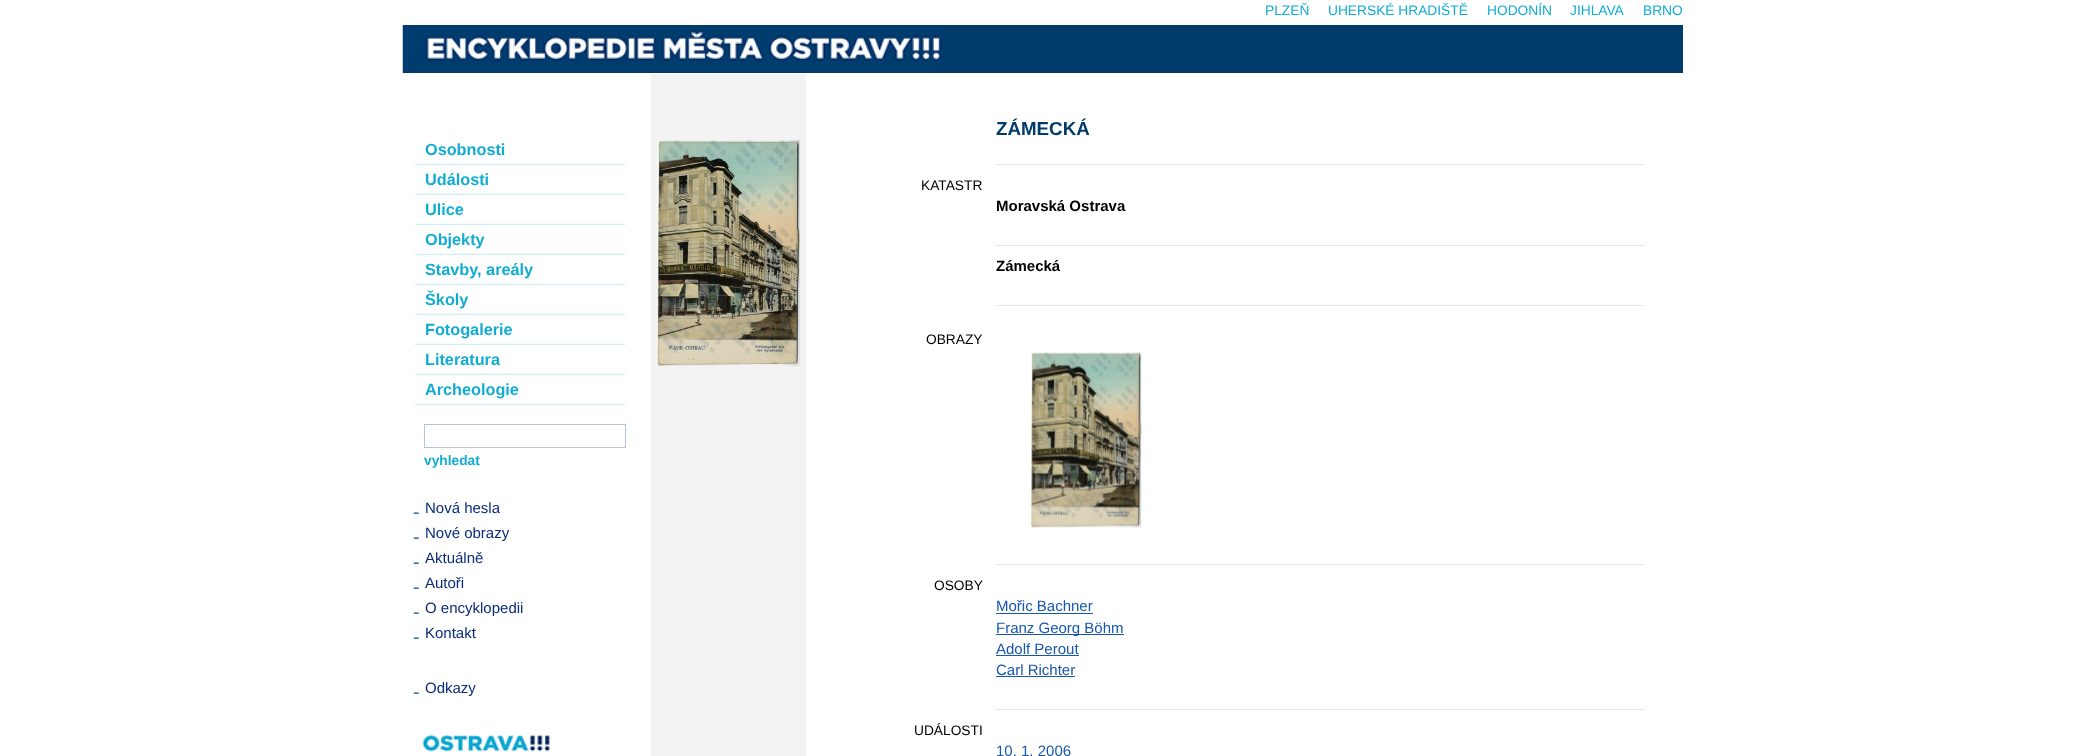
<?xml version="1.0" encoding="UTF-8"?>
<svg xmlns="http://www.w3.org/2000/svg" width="2084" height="756">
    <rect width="100%" height="100%" fill="#FFFFFF"/>
    <text x="1265" y="15" font-family="Liberation Sans" font-size="13.75" fill="#12ACD3">PLZEŇ</text>
    <text x="1328" y="15" font-family="Liberation Sans" font-size="13.75" fill="#12ACD3">UHERSKÉ HRADIŠTĚ</text>
    <text x="1487" y="15" font-family="Liberation Sans" font-size="13.75" fill="#12ACD3">HODONÍN</text>
    <text x="1570" y="15" font-family="Liberation Sans" font-size="13.75" fill="#12ACD3">JIHLAVA</text>
    <text x="1643" y="15" font-family="Liberation Sans" font-size="13.75" fill="#12ACD3">BRNO</text>
    <rect x="403" y="25" width="1280" height="48" fill="#003B6C"/>
    <image x="402" y="25" width="540" height="48" href="img_01.png"/>
    <image x="415" y="163" width="210" height="2" href="img_02.png"/>
    <text x="425" y="155" font-family="Liberation Sans" font-size="16.25" font-weight="700" fill="#12ACD3">Osobnosti</text>
    <image x="415" y="193" width="210" height="2" href="img_02.png"/>
    <text x="425" y="185" font-family="Liberation Sans" font-size="16.25" font-weight="700" fill="#12ACD3">Události</text>
    <image x="415" y="223" width="210" height="2" href="img_02.png"/>
    <text x="425" y="215" font-family="Liberation Sans" font-size="16.25" font-weight="700" fill="#12ACD3">Ulice</text>
    <image x="415" y="253" width="210" height="2" href="img_02.png"/>
    <text x="425" y="245" font-family="Liberation Sans" font-size="16.25" font-weight="700" fill="#12ACD3">Objekty</text>
    <image x="415" y="283" width="210" height="2" href="img_02.png"/>
    <text x="425" y="275" font-family="Liberation Sans" font-size="16.25" font-weight="700" fill="#12ACD3">Stavby, areály</text>
    <image x="415" y="313" width="210" height="2" href="img_02.png"/>
    <text x="425" y="305" font-family="Liberation Sans" font-size="16.25" font-weight="700" fill="#12ACD3">Školy</text>
    <image x="415" y="343" width="210" height="2" href="img_02.png"/>
    <text x="425" y="335" font-family="Liberation Sans" font-size="16.25" font-weight="700" fill="#12ACD3">Fotogalerie</text>
    <image x="415" y="373" width="210" height="2" href="img_02.png"/>
    <text x="425" y="365" font-family="Liberation Sans" font-size="16.25" font-weight="700" fill="#12ACD3">Literatura</text>
    <image x="415" y="403" width="210" height="2" href="img_02.png"/>
    <text x="425" y="395" font-family="Liberation Sans" font-size="16.25" font-weight="700" fill="#12ACD3">Archeologie</text>
    <rect x="424.5" y="424.5" width="201" height="23" fill="none" stroke="#B3C5DB"/>
    <text x="424" y="465" font-family="Liberation Sans" font-size="13.75" font-weight="700" fill="#12ACD3">vyhledat</text>
    <image x="413" y="512" width="6" height="2" href="img_03.png"/>
    <text x="425" y="513" font-family="Liberation Sans" font-size="15" fill="#0A2B7B">Nová hesla</text>
    <image x="413" y="537" width="6" height="2" href="img_03.png"/>
    <text x="425" y="538" font-family="Liberation Sans" font-size="15" fill="#0A2B7B">Nové obrazy</text>
    <image x="413" y="562" width="6" height="2" href="img_03.png"/>
    <text x="425" y="563" font-family="Liberation Sans" font-size="15" fill="#0A2B7B">Aktuálně</text>
    <image x="413" y="587" width="6" height="2" href="img_03.png"/>
    <text x="425" y="588" font-family="Liberation Sans" font-size="15" fill="#0A2B7B">Autoři</text>
    <image x="413" y="612" width="6" height="2" href="img_03.png"/>
    <text x="425" y="613" font-family="Liberation Sans" font-size="15" fill="#0A2B7B">O encyklopedii</text>
    <image x="413" y="637" width="6" height="2" href="img_03.png"/>
    <text x="425" y="638" font-family="Liberation Sans" font-size="15" fill="#0A2B7B">Kontakt</text>
    <image x="413" y="692" width="6" height="2" href="img_03.png"/>
    <text x="425" y="693" font-family="Liberation Sans" font-size="15" fill="#0A2B7B">Odkazy</text>
    <image x="422" y="734" width="129" height="18" href="img_04.png"/>
    <rect x="651" y="74" width="155" height="682" fill="#F3F3F3"/>
    <image x="657" y="140" width="143" height="227" href="img_05.png"/>
    <text x="996" y="135" font-family="Liberation Sans" font-size="18.75" font-weight="700" fill="#003B6C">ZÁMECKÁ</text>
    <rect x="996" y="164" width="648" height="1" fill="#E5E5E5"/>
    <text x="921" y="190" font-family="Liberation Sans" font-size="13.75" fill="#000000">KATASTR</text>
    <text x="996" y="211" font-family="Liberation Sans" font-size="15" font-weight="700" fill="#000000">Moravská Ostrava</text>
    <rect x="996" y="245" width="648" height="1" fill="#E5E5E5"/>
    <text x="996" y="271" font-family="Liberation Sans" font-size="15" font-weight="700" fill="#000000">Zámecká</text>
    <rect x="996" y="305" width="648" height="1" fill="#E5E5E5"/>
    <text x="926" y="344" font-family="Liberation Sans" font-size="13.75" fill="#000000">OBRAZY</text>
    <image x="1031" y="352" width="111" height="176" href="img_06.png"/>
    <rect x="996" y="564" width="648" height="1" fill="#E5E5E5"/>
    <text x="934" y="590" font-family="Liberation Sans" font-size="13.75" fill="#000000">OSOBY</text>
    <text x="996" y="611" font-family="Liberation Sans" font-size="15" fill="#1757AE">Mořic Bachner</text>
    <rect x="996" y="613" width="97" height="1" fill="#1757AE"/>
    <rect x="996" y="634" width="128" height="1" fill="#1757AE"/>
    <text font-family="Liberation Sans" font-size="15" fill="#1757AE">
        <tspan x="996" y="633">Franz Georg Böhm</tspan>
        <tspan x="996" y="654">Adolf Perout</tspan>
    </text>
    <rect x="996" y="655" width="83" height="1" fill="#1757AE"/>
    <text x="996" y="675" font-family="Liberation Sans" font-size="15" fill="#1757AE">Carl Richter</text>
    <rect x="996" y="676" width="79" height="1" fill="#1757AE"/>
    <rect x="996" y="709" width="648" height="1" fill="#E5E5E5"/>
    <text x="914" y="735" font-family="Liberation Sans" font-size="13.75" fill="#000000">UDÁLOSTI</text>
    <text x="996" y="756" font-family="Liberation Sans" font-size="15" fill="#1757AE">10. 1. 2006</text>
</svg>
